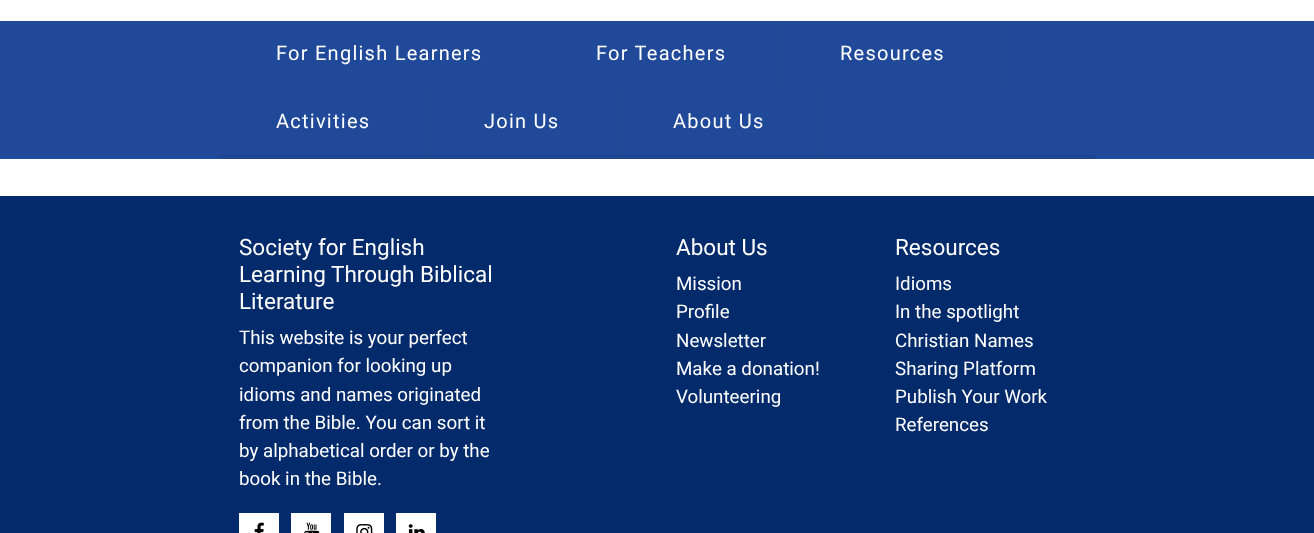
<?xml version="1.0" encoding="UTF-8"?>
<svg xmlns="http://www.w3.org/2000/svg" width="1314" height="533">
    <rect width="100%" height="100%" fill="#FFFFFF"/>
    <rect x="0" y="21" width="1314" height="138" fill="#204999"/>
    <rect x="821" y="90" width="1" height="69" fill="#264A90"/>
    <rect x="616" y="90" width="1" height="69" fill="#264A90"/>
    <rect x="426" y="90" width="1" height="69" fill="#264A90"/>
    <rect x="220" y="155" width="875" height="4" fill="#1E4591"/>
    <rect x="821" y="155" width="1" height="4" fill="#244689"/>
    <rect x="616" y="155" width="1" height="4" fill="#244689"/>
    <rect x="426" y="155" width="1" height="4" fill="#244689"/>
    <rect x="539" y="21" width="1" height="69" fill="#264A90"/>
    <text x="276" y="60" font-family="Roboto" font-size="20" letter-spacing="1.25" fill="#FFFFFF">For English Learners</text>
    <rect x="783" y="21" width="1" height="69" fill="#264A90"/>
    <text x="596" y="60" font-family="Roboto" font-size="20" letter-spacing="1.25" fill="#FFFFFF">For Teachers</text>
    <rect x="1001" y="21" width="1" height="69" fill="#264A90"/>
    <text x="840" y="60" font-family="Roboto" font-size="20" letter-spacing="1.25" fill="#FFFFFF">Resources</text>
    <text x="276" y="128" font-family="Roboto" font-size="20" letter-spacing="1.25" fill="#FFFFFF">Activities</text>
    <text x="484" y="128" font-family="Roboto" font-size="20" letter-spacing="1.25" fill="#FFFFFF">Join Us</text>
    <text x="673" y="128" font-family="Roboto" font-size="20" letter-spacing="1.25" fill="#FFFFFF">About Us</text>
    <rect x="0" y="196" width="1314" height="337" fill="#032A6B"/>
    <text font-family="Roboto" font-size="22.5" fill="#FFFFFF">
        <tspan x="239" y="255">Society for English</tspan>
        <tspan x="239" y="282">Learning Through Biblical</tspan>
        <tspan x="239" y="309">Literature</tspan>
    </text>
    <text font-family="Roboto" font-size="18.75" fill="#FFFFFF">
        <tspan x="239" y="344">This website is your perfect</tspan>
        <tspan x="239" y="372">companion for looking up</tspan>
        <tspan x="239" y="401">idioms and names originated</tspan>
        <tspan x="239" y="429">from the Bible. You can sort it</tspan>
        <tspan x="239" y="457">by alphabetical order or by the</tspan>
        <tspan x="239" y="485">book in the Bible.</tspan>
    </text>
    <rect x="239" y="513" width="40" height="20" fill="#FFFFFF"/>
    <image x="254" y="522" width="10" height="11" href="img_01.png"/>
    <rect x="291" y="513" width="40" height="20" fill="#FFFFFF"/>
    <image x="304" y="522" width="16" height="11" href="img_02.png"/>
    <rect x="344" y="513" width="40" height="20" fill="#FFFFFF"/>
    <image x="356" y="524" width="17" height="9" href="img_03.png"/>
    <rect x="396" y="513" width="40" height="20" fill="#FFFFFF"/>
    <image x="408" y="524" width="17" height="9" href="img_04.png"/>
    <text x="676" y="255" font-family="Roboto" font-size="22.5" fill="#FFFFFF">About Us</text>
    <text font-family="Roboto" font-size="18.75" fill="#FFFFFF">
        <tspan x="676" y="290">Mission</tspan>
        <tspan x="676" y="318">Profile</tspan>
        <tspan x="676" y="347">Newsletter</tspan>
        <tspan x="676" y="375">Make a donation!</tspan>
        <tspan x="676" y="403">Volunteering</tspan>
    </text>
    <text x="895" y="255" font-family="Roboto" font-size="22.5" fill="#FFFFFF">Resources</text>
    <text font-family="Roboto" font-size="18.75" fill="#FFFFFF">
        <tspan x="895" y="290">Idioms</tspan>
        <tspan x="895" y="318">In the spotlight</tspan>
        <tspan x="895" y="347">Christian Names</tspan>
        <tspan x="895" y="375">Sharing Platform</tspan>
        <tspan x="895" y="403">Publish Your Work</tspan>
        <tspan x="895" y="431">References</tspan>
    </text>
</svg>
